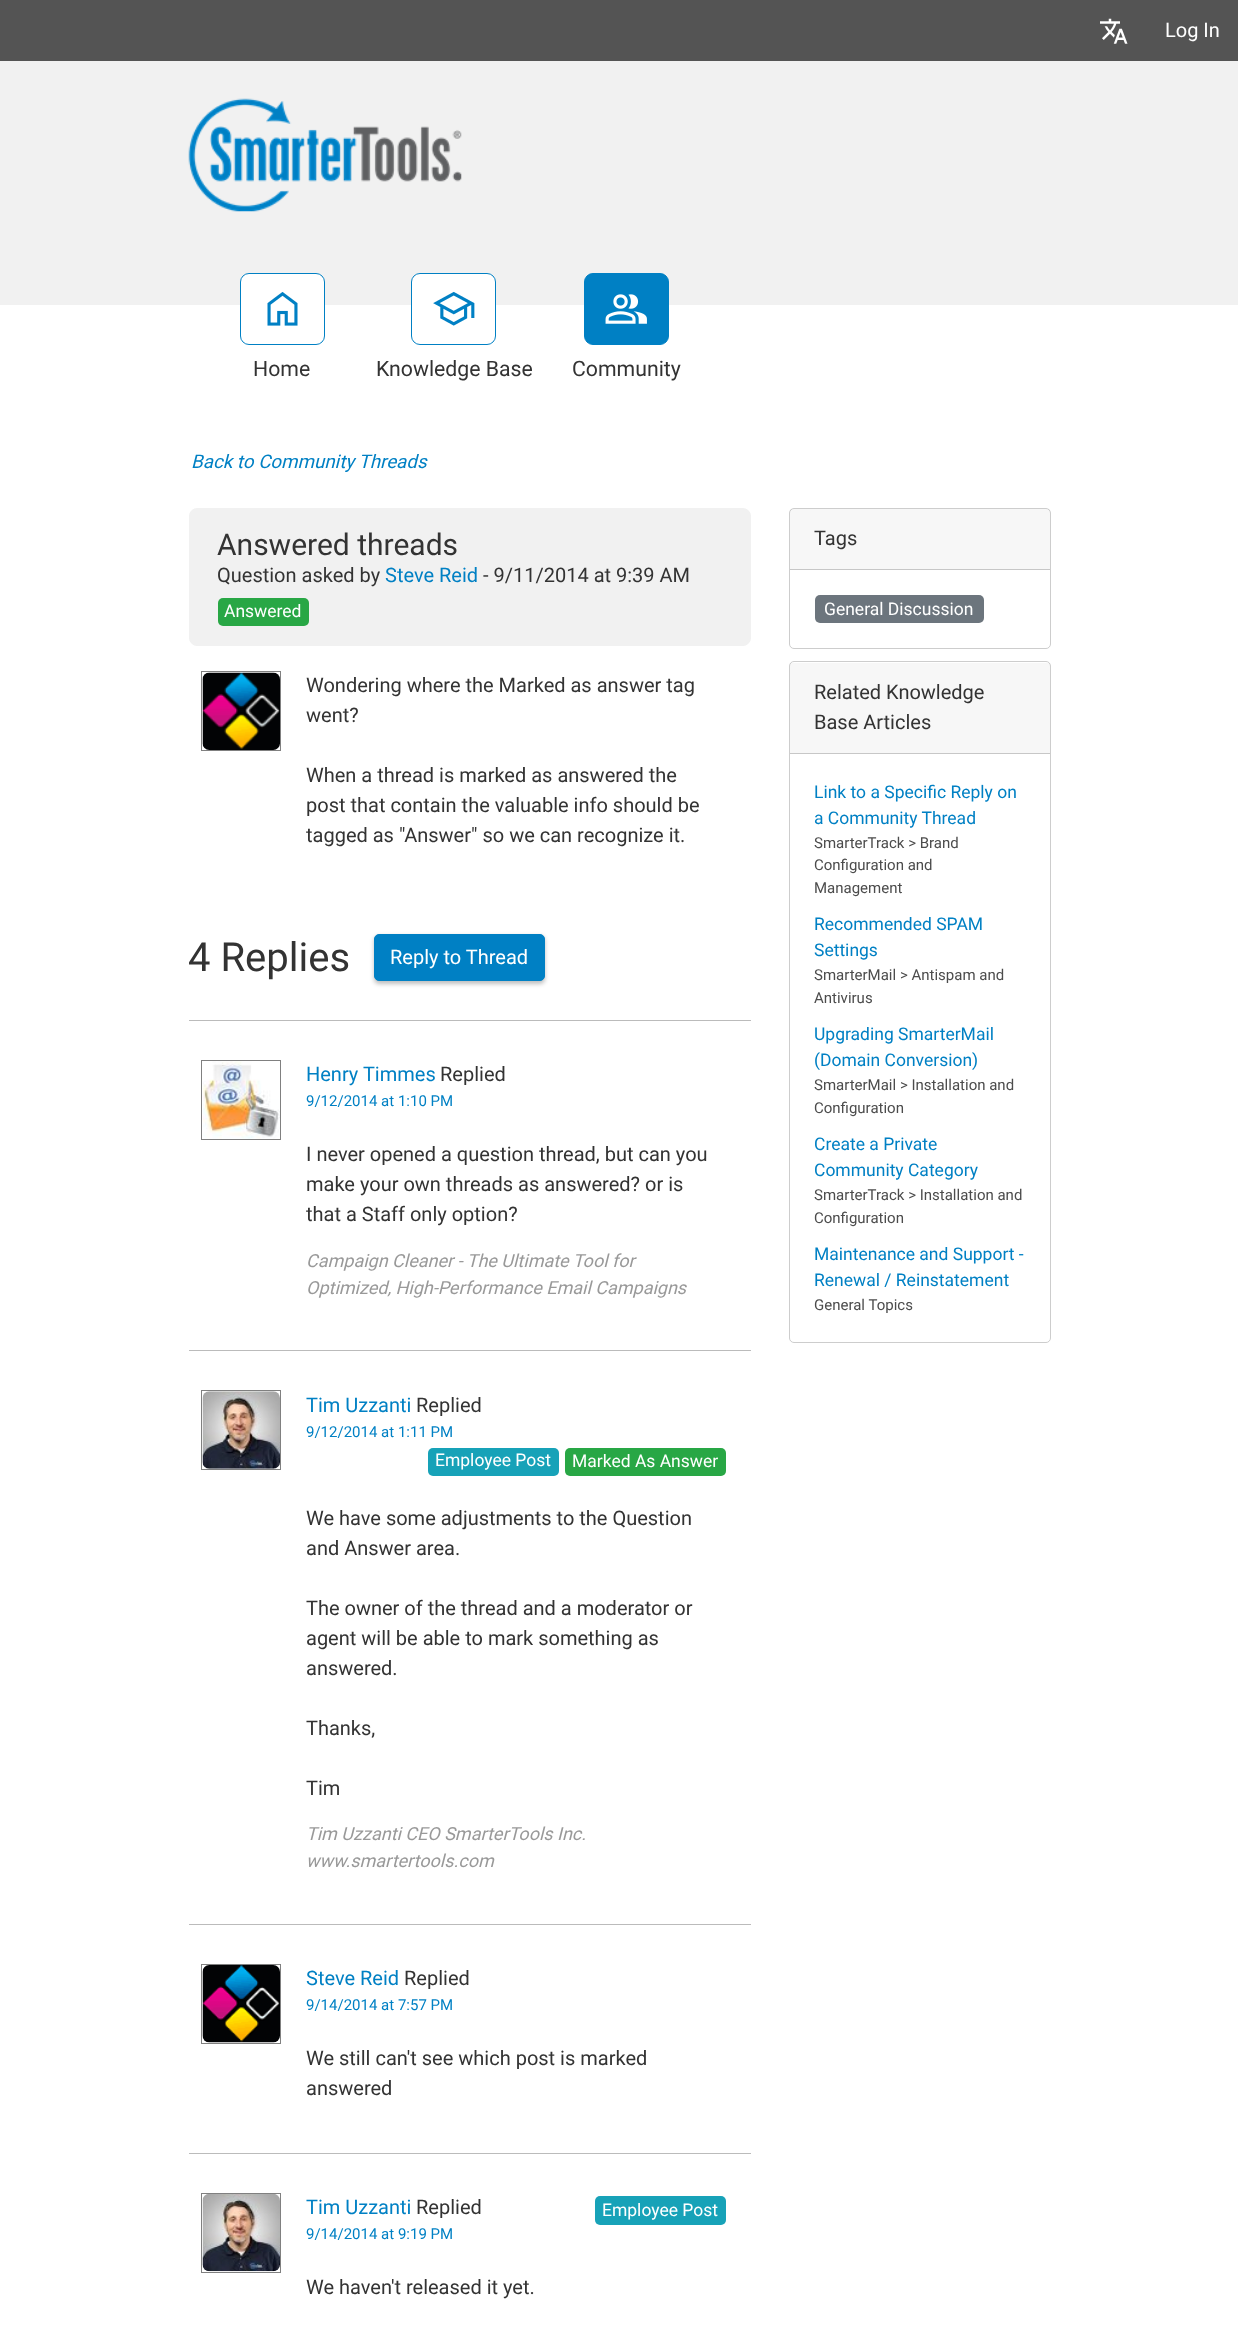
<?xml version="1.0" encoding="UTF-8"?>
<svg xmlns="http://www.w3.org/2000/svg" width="1238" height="2336">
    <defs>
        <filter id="blur1" x="-50%" y="-200%" width="200%" height="500%"><feGaussianBlur stdDeviation="2"/></filter>
    </defs>
    <rect width="100%" height="100%" fill="#FFFFFF"/>
    <rect x="0" y="0" width="1238" height="61" fill="#545454"/>
    <image x="1100" y="18" width="28" height="26" href="img_01.png"/>
    <text x="1165" y="37" font-family="Roboto" font-size="20" fill="#FFFFFF">Log In</text>
    <rect x="0" y="61" width="1238" height="244" fill="#F1F1F1"/>
    <image x="188" y="98" width="274" height="114" href="img_02.png"/>
    <rect x="240.5" y="273.5" width="84" height="71" rx="8.5" fill="#FFFFFF" stroke="#0080C4"/>
    <image x="267" y="292" width="31" height="34" href="img_03.png"/>
    <text x="253" y="376" font-family="Roboto" font-size="21.25" fill="#333333">Home</text>
    <rect x="411.5" y="273.5" width="84" height="71" rx="8.5" fill="#FFFFFF" stroke="#0080C4"/>
    <image x="433" y="291" width="42" height="35" href="img_04.png"/>
    <text x="376" y="376" font-family="Roboto" font-size="21.25" fill="#333333">Knowledge Base</text>
    <rect x="584.5" y="273.5" width="84" height="71" rx="8.5" fill="#0080C4" stroke="#0080C4"/>
    <image x="605" y="294" width="42" height="30" href="img_05.png"/>
    <text x="572" y="376" font-family="Roboto" font-size="21.25" fill="#333333">Community</text>
    <text x="191" y="468" font-family="Roboto" font-size="18.75" font-style="italic" fill="#0080C4">Back to Community Threads</text>
    <rect x="189.5" y="508.5" width="561" height="137" rx="7.5" fill="#F1F1F1" stroke="#F1F1F1"/>
    <text x="217" y="555" font-family="Roboto" font-size="30" fill="#333333">Answered threads</text>
    <text x="217" y="582" font-family="Roboto" font-size="20" fill="#333333">Question asked by</text>
    <text x="385" y="582" font-family="Roboto" font-size="20" fill="#0080C4">Steve Reid</text>
    <text x="483" y="582" font-family="Roboto" font-size="20" fill="#333333">- 9/11/2014 at 9:39 AM</text>
    <rect x="218" y="598" width="91" height="28" rx="5" fill="#28A745"/>
    <text x="224" y="617" font-family="Roboto" font-size="17.5" fill="#FFFFFF">Answered</text>
    <rect x="201.5" y="671.5" width="79" height="79" fill="none" stroke="#808080"/>
    <image x="202" y="672" width="78" height="78" href="img_06.png"/>
    <text font-family="Roboto" font-size="20" fill="#333333">
        <tspan x="306" y="692">Wondering where the Marked as answer tag</tspan>
        <tspan x="306" y="722">went?</tspan>
    </text>
    <text font-family="Roboto" font-size="20" fill="#333333">
        <tspan x="306" y="782">When a thread is marked as answered the</tspan>
        <tspan x="306" y="812">post that contain the valuable info should be</tspan>
        <tspan x="306" y="842">tagged as "Answer" so we can recognize it.</tspan>
    </text>
    <text x="188" y="971" font-family="Roboto" font-size="40" fill="#333333">4 Replies</text>
    <rect x="374" y="936" width="171" height="48" rx="5" fill="#000000" fill-opacity="0.25" filter="url(#blur1)"/>
    <rect x="374.5" y="934.5" width="170" height="46" rx="4.5" fill="#0080C4" stroke="#0080C4"/>
    <text x="390" y="964" font-family="Roboto" font-size="20" fill="#FFFFFF">Reply to Thread</text>
    <rect x="189" y="1020" width="562" height="1" fill="#BBBBBB"/>
    <rect x="201.5" y="1060.5" width="79" height="79" fill="none" stroke="#808080"/>
    <image x="202" y="1061" width="78" height="78" href="img_07.png"/>
    <text x="306" y="1081" font-family="Roboto" font-size="20" fill="#0080C4">Henry Timmes</text>
    <text x="440" y="1081" font-family="Roboto" font-size="20" fill="#333333">Replied</text>
    <text x="306" y="1106" font-family="Roboto" font-size="15" fill="#0080C4">9/12/2014 at 1:10 PM</text>
    <text font-family="Roboto" font-size="20" fill="#333333">
        <tspan x="306" y="1161">I never opened a question thread, but can you</tspan>
        <tspan x="306" y="1191">make your own threads as answered? or is</tspan>
        <tspan x="306" y="1221">that a Staff only option?</tspan>
    </text>
    <text font-family="Roboto" font-size="18" font-style="italic" fill="#999999">
        <tspan x="306" y="1267">Campaign Cleaner - The Ultimate Tool for</tspan>
        <tspan x="306" y="1294">Optimized, High-Performance Email Campaigns</tspan>
    </text>
    <rect x="189" y="1350" width="562" height="1" fill="#BBBBBB"/>
    <rect x="201.5" y="1390.5" width="79" height="79" fill="none" stroke="#808080"/>
    <image x="202" y="1391" width="78" height="78" href="img_08.png"/>
    <text x="306" y="1412" font-family="Roboto" font-size="20" fill="#0080C4">Tim Uzzanti</text>
    <text x="416" y="1412" font-family="Roboto" font-size="20" fill="#333333">Replied</text>
    <text x="306" y="1437" font-family="Roboto" font-size="15" fill="#0080C4">9/12/2014 at 1:11 PM</text>
    <rect x="428" y="1448" width="131" height="28" rx="5" fill="#17A2B8"/>
    <text x="435" y="1466" font-family="Roboto" font-size="17.5" fill="#FFFFFF">Employee Post</text>
    <rect x="565" y="1448" width="161" height="28" rx="5" fill="#28A745"/>
    <text x="572" y="1467" font-family="Roboto" font-size="17.5" fill="#FFFFFF">Marked As Answer</text>
    <text font-family="Roboto" font-size="20" fill="#333333">
        <tspan x="306" y="1525">We have some adjustments to the Question</tspan>
        <tspan x="306" y="1555">and Answer area.</tspan>
    </text>
    <text font-family="Roboto" font-size="20" fill="#333333">
        <tspan x="306" y="1615">The owner of the thread and a moderator or</tspan>
        <tspan x="306" y="1645">agent will be able to mark something as</tspan>
        <tspan x="306" y="1675">answered.</tspan>
    </text>
    <text x="306" y="1735" font-family="Roboto" font-size="20" fill="#333333">Thanks,</text>
    <text x="306" y="1795" font-family="Roboto" font-size="20" fill="#333333">Tim</text>
    <text font-family="Roboto" font-size="18" font-style="italic" fill="#999999">
        <tspan x="306" y="1840">Tim Uzzanti CEO SmarterTools Inc.</tspan>
        <tspan x="306" y="1867">www.smartertools.com</tspan>
    </text>
    <rect x="189" y="1924" width="562" height="1" fill="#BBBBBB"/>
    <rect x="201.5" y="1964.5" width="79" height="79" fill="none" stroke="#808080"/>
    <image x="202" y="1965" width="78" height="78" href="img_09.png"/>
    <text x="306" y="1985" font-family="Roboto" font-size="20" fill="#0080C4">Steve Reid</text>
    <text x="404" y="1985" font-family="Roboto" font-size="20" fill="#333333">Replied</text>
    <text x="306" y="2010" font-family="Roboto" font-size="15" fill="#0080C4">9/14/2014 at 7:57 PM</text>
    <text font-family="Roboto" font-size="20" fill="#333333">
        <tspan x="306" y="2065">We still can't see which post is marked</tspan>
        <tspan x="306" y="2095">answered</tspan>
    </text>
    <rect x="189" y="2153" width="562" height="1" fill="#BBBBBB"/>
    <rect x="201.5" y="2193.5" width="79" height="79" fill="none" stroke="#808080"/>
    <image x="202" y="2194" width="78" height="78" href="img_10.png"/>
    <text x="306" y="2214" font-family="Roboto" font-size="20" fill="#0080C4">Tim Uzzanti</text>
    <text x="416" y="2214" font-family="Roboto" font-size="20" fill="#333333">Replied</text>
    <text x="306" y="2239" font-family="Roboto" font-size="15" fill="#0080C4">9/14/2014 at 9:19 PM</text>
    <rect x="595" y="2196" width="131" height="29" rx="5" fill="#17A2B8"/>
    <text x="602" y="2216" font-family="Roboto" font-size="17.5" fill="#FFFFFF">Employee Post</text>
    <text x="306" y="2294" font-family="Roboto" font-size="20" fill="#333333">We haven't released it yet.</text>
    <rect x="789.5" y="508.5" width="261" height="140" rx="4.5" fill="none" stroke="#CDCDCD"/>
    <rect x="790" y="509" width="260" height="60" fill="#000000" fill-opacity="0.03"/>
    <rect x="790" y="569" width="260" height="1" fill="#C7C7C7"/>
    <text x="814" y="545" font-family="Roboto" font-size="20" fill="#333333">Tags</text>
    <rect x="815" y="595" width="169" height="28" rx="5" fill="#6C757D"/>
    <text x="824" y="615" font-family="Roboto" font-size="17.5" fill="#FFFFFF">General Discussion</text>
    <rect x="789.5" y="661.5" width="261" height="681" rx="4.5" fill="none" stroke="#CDCDCD"/>
    <rect x="790" y="663" width="260" height="90" fill="#000000" fill-opacity="0.03"/>
    <rect x="790" y="753" width="260" height="1" fill="#C7C7C7"/>
    <text font-family="Roboto" font-size="20" fill="#333333">
        <tspan x="814" y="699">Related Knowledge</tspan>
        <tspan x="814" y="729">Base Articles</tspan>
    </text>
    <text font-family="Roboto" font-size="17.5" fill="#0080C4">
        <tspan x="814" y="798">Link to a Specific Reply on</tspan>
        <tspan x="814" y="824">a Community Thread</tspan>
    </text>
    <text font-family="Roboto" font-size="15" fill="#4C4C4C">
        <tspan x="814" y="848">SmarterTrack &gt; Brand</tspan>
        <tspan x="814" y="870">Configuration and</tspan>
        <tspan x="814" y="893">Management</tspan>
    </text>
    <text font-family="Roboto" font-size="17.5" fill="#0080C4">
        <tspan x="814" y="930">Recommended SPAM</tspan>
        <tspan x="814" y="956">Settings</tspan>
    </text>
    <text font-family="Roboto" font-size="15" fill="#4C4C4C">
        <tspan x="814" y="980">SmarterMail &gt; Antispam and</tspan>
        <tspan x="814" y="1003">Antivirus</tspan>
    </text>
    <text font-family="Roboto" font-size="17.5" fill="#0080C4">
        <tspan x="814" y="1040">Upgrading SmarterMail</tspan>
        <tspan x="814" y="1066">(Domain Conversion)</tspan>
    </text>
    <text font-family="Roboto" font-size="15" fill="#4C4C4C">
        <tspan x="814" y="1090">SmarterMail &gt; Installation and</tspan>
        <tspan x="814" y="1113">Configuration</tspan>
    </text>
    <text font-family="Roboto" font-size="17.5" fill="#0080C4">
        <tspan x="814" y="1150">Create a Private</tspan>
        <tspan x="814" y="1176">Community Category</tspan>
    </text>
    <text font-family="Roboto" font-size="15" fill="#4C4C4C">
        <tspan x="814" y="1200">SmarterTrack &gt; Installation and</tspan>
        <tspan x="814" y="1223">Configuration</tspan>
    </text>
    <text font-family="Roboto" font-size="17.5" fill="#0080C4">
        <tspan x="814" y="1260">Maintenance and Support -</tspan>
        <tspan x="814" y="1286">Renewal / Reinstatement</tspan>
    </text>
    <text x="814" y="1310" font-family="Roboto" font-size="15" fill="#4C4C4C">General Topics</text>
</svg>
